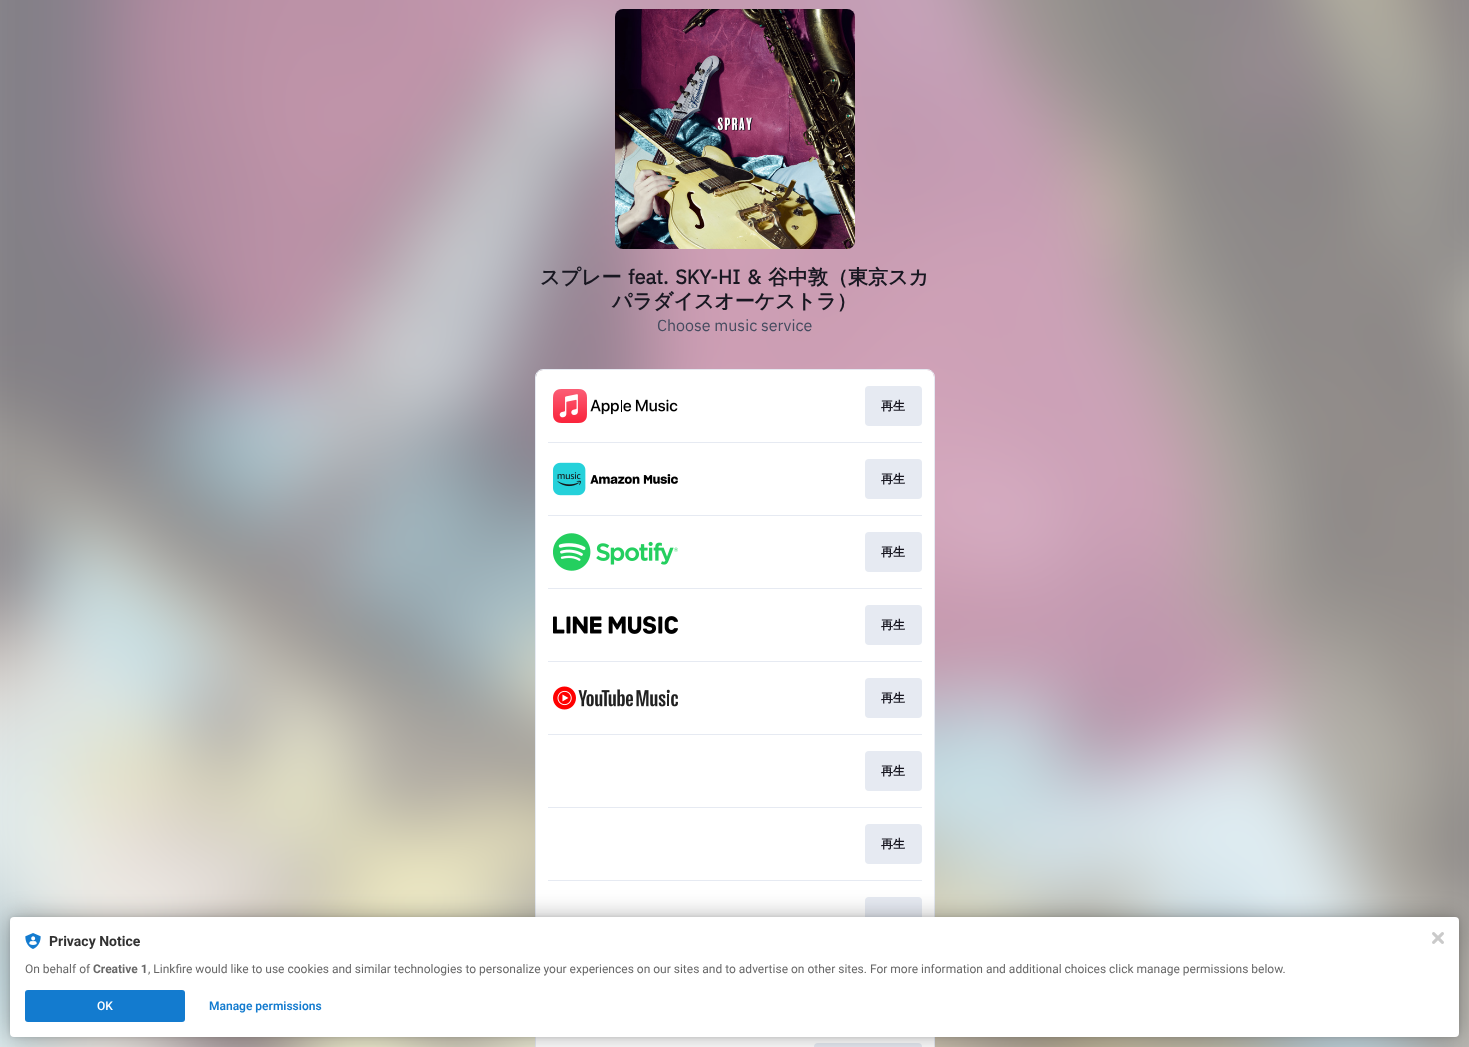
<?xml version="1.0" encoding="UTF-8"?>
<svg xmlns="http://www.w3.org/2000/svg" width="1469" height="1047">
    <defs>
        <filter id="blur1" x="-50%" y="-200%" width="200%" height="500%"><feGaussianBlur stdDeviation="2"/></filter>
        <filter id="blur2" x="-50%" y="-200%" width="200%" height="500%"><feGaussianBlur stdDeviation="12"/></filter>
    </defs>
    <rect width="100%" height="100%" fill="#FFFFFF"/>
    <image x="0" y="0" width="1469" height="1047" href="img_01.png"/>
    <image x="615" y="9" width="240" height="240" href="img_02.png"/>
    <text x="540" y="284" font-family="WenQuanYi Zen Hei" font-size="20" font-weight="700" fill="#181721">スプレー</text>
    <text x="628" y="284" word-spacing="2" font-family="IBM Plex Sans" font-size="20" font-weight="700" fill="#181721">feat. SKY-HI &amp;</text>
    <text x="768" y="284" font-family="WenQuanYi Zen Hei" font-size="20" font-weight="700" fill="#181721">谷中敦（東京スカ</text>
    <text x="612" y="308" font-family="WenQuanYi Zen Hei" font-size="20" font-weight="700" fill="#181721">パラダイスオーケストラ）</text>
    <text x="657" y="331" font-family="IBM Plex Sans" font-size="16" fill="#454B5F">Choose music service</text>
    <rect x="535.5" y="369.5" width="399" height="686" rx="7.5" fill="none" stroke="#E6EAF2"/>
    <rect x="536" y="370" width="398" height="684" rx="7" fill="#FFFFFF"/>
    <image x="553" y="389" width="125" height="34" href="img_03.png"/>
    <rect x="865" y="386" width="57" height="40" rx="4" fill="#E6EAF2"/>
    <text x="881" y="410" font-family="WenQuanYi Zen Hei" font-size="12" font-weight="700" fill="#181721">再生</text>
    <rect x="548" y="442" width="374" height="1" fill="#E6EAF2"/>
    <image x="553" y="462" width="125" height="34" href="img_04.png"/>
    <rect x="865" y="459" width="57" height="40" rx="4" fill="#E6EAF2"/>
    <text x="881" y="483" font-family="WenQuanYi Zen Hei" font-size="12" font-weight="700" fill="#181721">再生</text>
    <rect x="548" y="515" width="374" height="1" fill="#E6EAF2"/>
    <image x="553" y="533" width="125" height="38" href="img_05.png"/>
    <rect x="865" y="532" width="57" height="40" rx="4" fill="#E6EAF2"/>
    <text x="881" y="556" font-family="WenQuanYi Zen Hei" font-size="12" font-weight="700" fill="#181721">再生</text>
    <rect x="548" y="588" width="374" height="1" fill="#E6EAF2"/>
    <image x="553" y="616" width="125" height="18" href="img_06.png"/>
    <rect x="865" y="605" width="57" height="40" rx="4" fill="#E6EAF2"/>
    <text x="881" y="629" font-family="WenQuanYi Zen Hei" font-size="12" font-weight="700" fill="#181721">再生</text>
    <rect x="548" y="661" width="374" height="1" fill="#E6EAF2"/>
    <image x="553" y="686" width="125" height="24" href="img_07.png"/>
    <rect x="865" y="678" width="57" height="40" rx="4" fill="#E6EAF2"/>
    <text x="881" y="702" font-family="WenQuanYi Zen Hei" font-size="12" font-weight="700" fill="#181721">再生</text>
    <rect x="548" y="734" width="374" height="1" fill="#E6EAF2"/>
    <rect x="865" y="751" width="57" height="40" rx="4" fill="#E6EAF2"/>
    <text x="881" y="775" font-family="WenQuanYi Zen Hei" font-size="12" font-weight="700" fill="#181721">再生</text>
    <rect x="548" y="807" width="374" height="1" fill="#E6EAF2"/>
    <rect x="865" y="824" width="57" height="40" rx="4" fill="#E6EAF2"/>
    <text x="881" y="848" font-family="WenQuanYi Zen Hei" font-size="12" font-weight="700" fill="#181721">再生</text>
    <rect x="548" y="880" width="374" height="1" fill="#E6EAF2"/>
    <rect x="865" y="897" width="57" height="40" rx="4" fill="#E6EAF2"/>
    <rect x="814" y="1043" width="108" height="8" rx="4" fill="#E6EAF2"/>
    <rect x="10" y="917" width="1449" height="120" rx="4" fill="#000000" fill-opacity="0.12" filter="url(#blur1)"/>
    <rect x="10" y="917" width="1449" height="120" rx="4" fill="#000000" fill-opacity="0.3" filter="url(#blur2)"/>
    <rect x="10" y="917" width="1449" height="120" rx="4" fill="#FFFFFF"/>
    <image x="25" y="933" width="16" height="16" href="img_08.png"/>
    <text x="49" y="946" font-family="Roboto" font-size="14" font-weight="700" fill="#323232">Privacy Notice</text>
    <text x="25" y="973" font-family="Roboto" font-size="12" fill="#686868">On behalf of</text>
    <text x="93" y="973" font-family="Roboto" font-size="12" font-weight="700" fill="#686868">Creative 1</text>
    <text x="148" y="973" font-family="Roboto" font-size="12" fill="#686868">, Linkfire would like to use cookies and similar technologies to personalize your experiences on our sites and to advertise on other sites. For more information and additional choices click manage permissions below.</text>
    <rect x="25" y="990" width="160" height="32" rx="3" fill="#137BCF"/>
    <text x="97" y="1010" font-family="Roboto" font-size="12" font-weight="500" fill="#FFFFFF">OK</text>
    <text x="209" y="1010" font-family="Roboto" font-size="12" font-weight="600" fill="#137BCF">Manage permissions</text>
    <image x="1432" y="932" width="12" height="12" href="img_09.png"/>
</svg>
